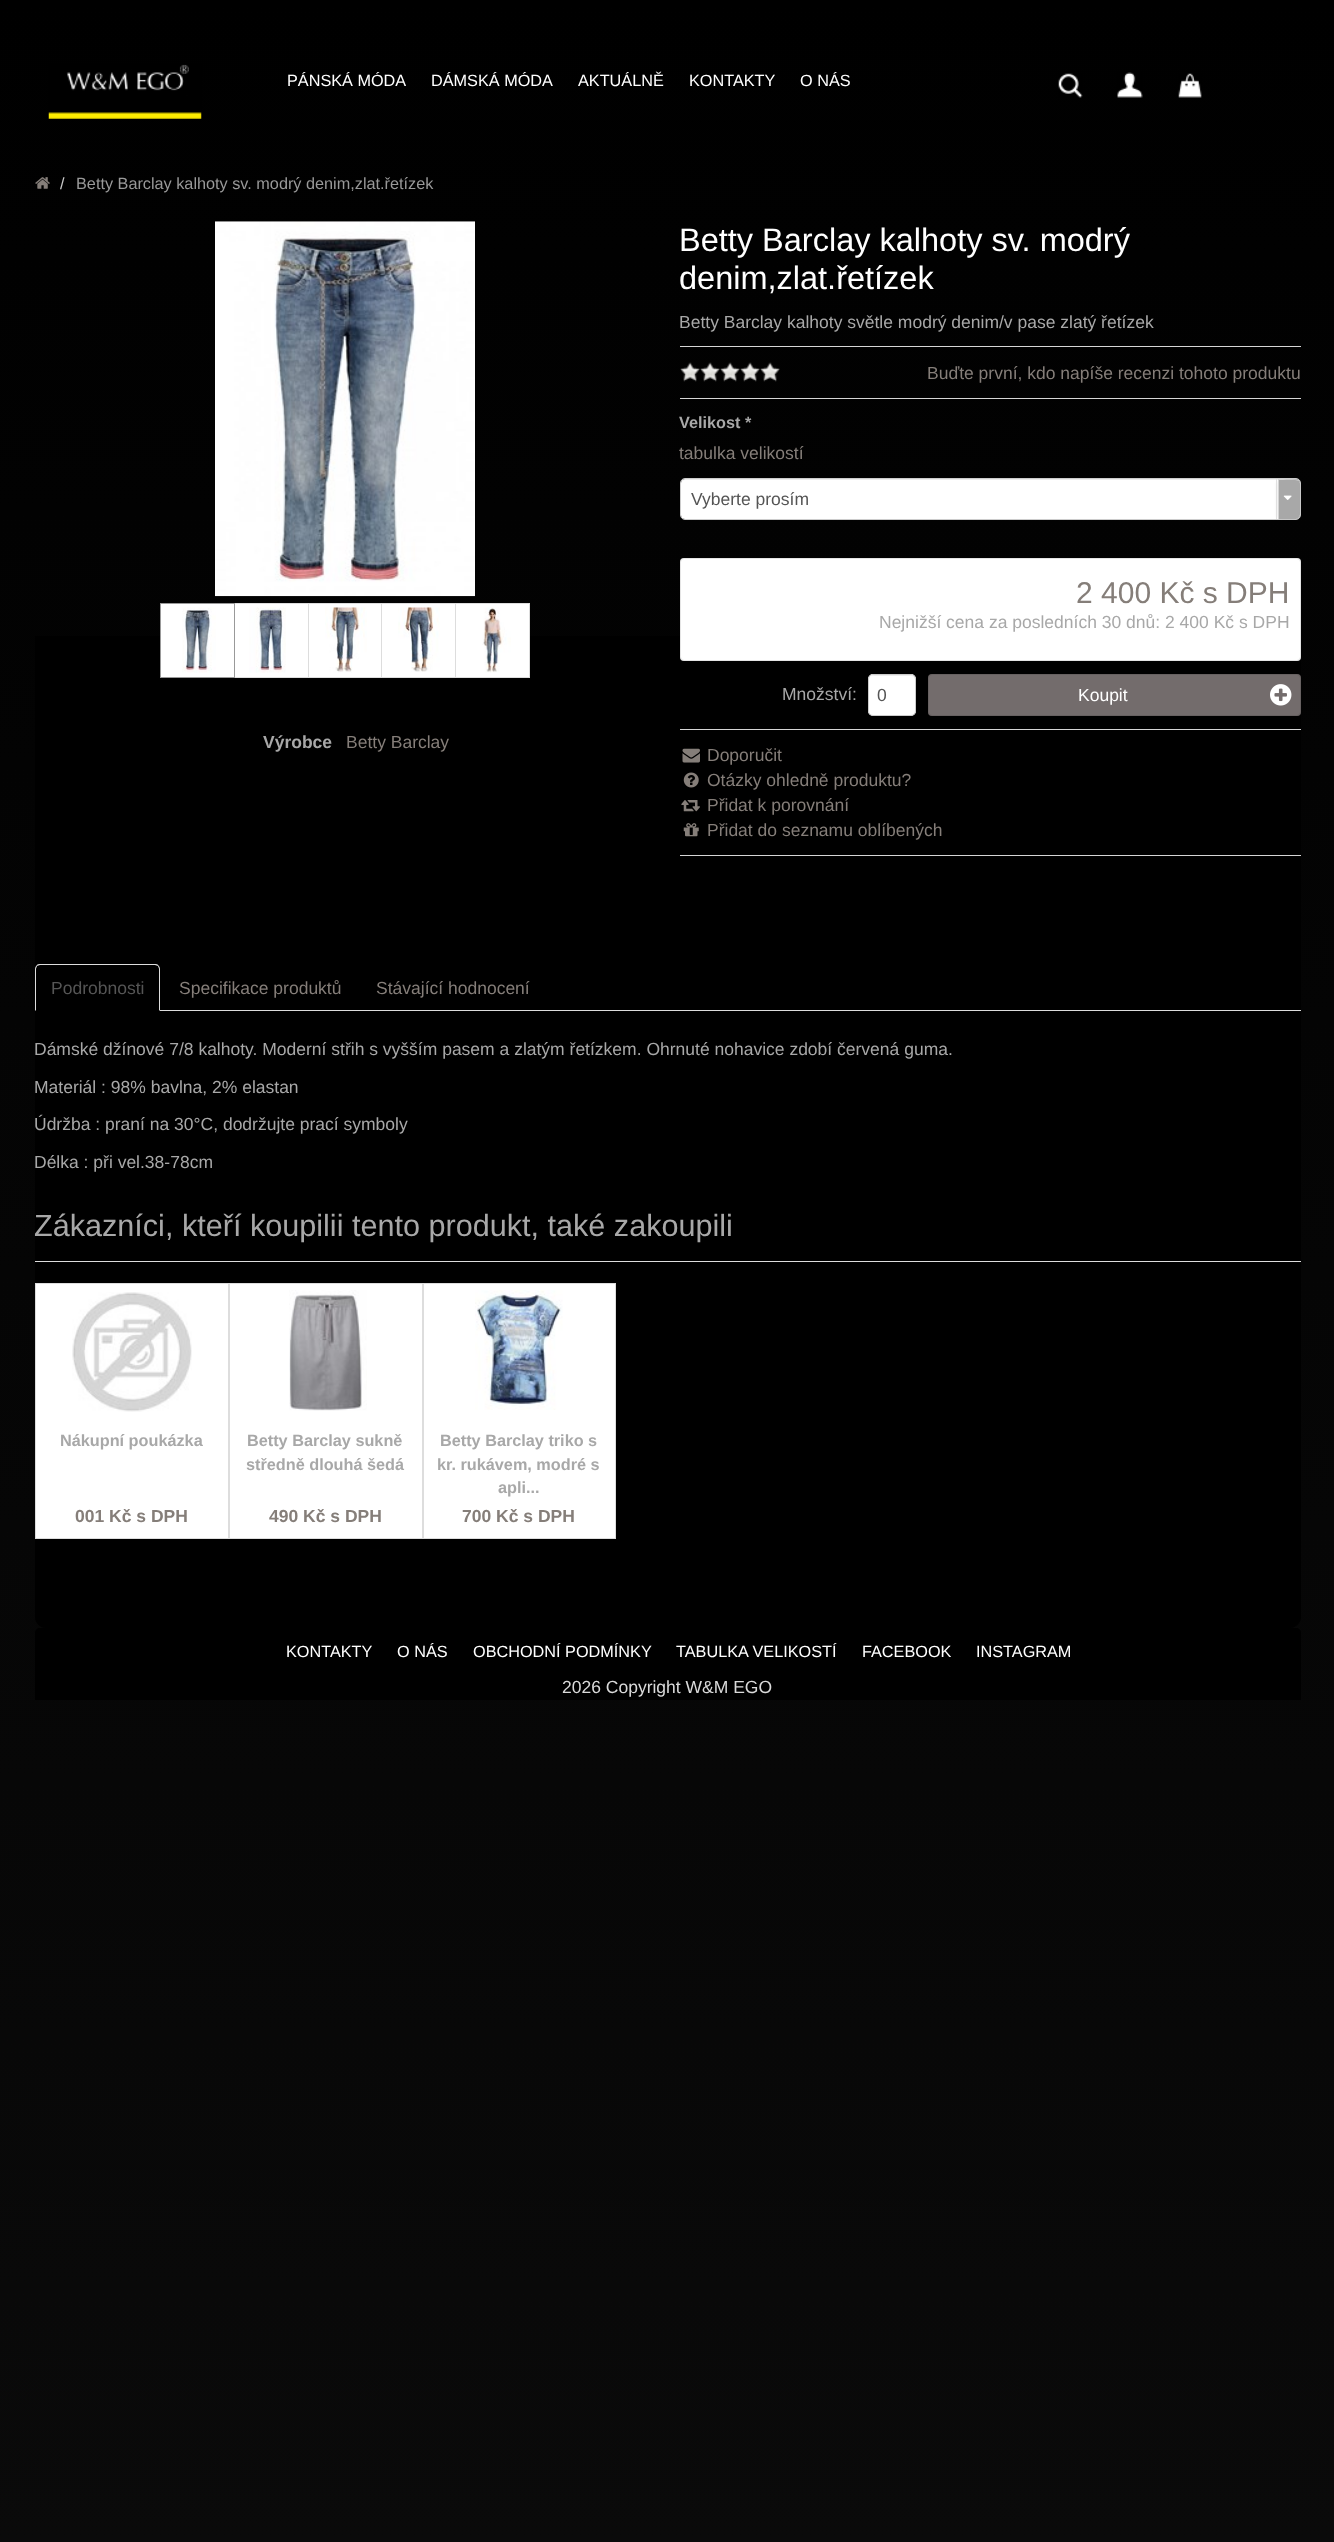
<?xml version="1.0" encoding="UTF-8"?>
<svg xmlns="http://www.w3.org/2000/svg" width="1334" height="2542">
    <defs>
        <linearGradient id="g1" gradientUnits="userSpaceOnUse" x1="667" y1="0" x2="668" y2="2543"><stop offset="0" stop-color="#000000"/><stop offset="1" stop-color="#0A0A0A"/></linearGradient>
        <filter id="blur1" x="-50%" y="-200%" width="200%" height="500%"><feGaussianBlur stdDeviation="1"/></filter>
        <clipPath id="clip1"><rect x="681" y="479" width="619" height="40" rx="4"/></clipPath>
    </defs>
    <rect width="100%" height="100%" fill="#FFFFFF"/>
    <rect x="0" y="0" width="1334" height="2542" fill="url(#g1)"/>
    <image x="48" y="64" width="154" height="55" href="img_01.png"/>
    <text x="287" y="86" font-family="Liberation Sans" font-size="16.25" fill="#FFFFFF">PÁNSKÁ MÓDA</text>
    <text x="431" y="86" font-family="Liberation Sans" font-size="16.25" fill="#FFFFFF">DÁMSKÁ MÓDA</text>
    <text x="578" y="86" font-family="Liberation Sans" font-size="16.25" fill="#FFFFFF">AKTUÁLNĚ</text>
    <text x="689" y="86" font-family="Liberation Sans" font-size="16.25" fill="#FFFFFF">KONTAKTY</text>
    <text x="800" y="86" font-family="Liberation Sans" font-size="16.25" fill="#FFFFFF">O NÁS</text>
    <image x="1058" y="73" width="25" height="25" href="img_02.png"/>
    <image x="1117" y="72" width="26" height="26" href="img_03.png"/>
    <image x="1178" y="73" width="24" height="25" href="img_04.png"/>
    <rect x="35" y="636" width="1266" height="965" fill="#000000"/>
    <image x="35" y="177" width="15" height="12" href="img_05.png"/>
    <text x="60" y="189" font-family="Liberation Sans" font-size="16.25" fill="#CCCCCC">/</text>
    <text x="76" y="189" font-family="Liberation Sans" font-size="16.25" fill="#999999">Betty Barclay kalhoty sv. modrý denim,zlat.řetízek</text>
    <image x="215" y="221" width="260" height="376" href="img_06.png"/>
    <rect x="234.5" y="603.5" width="74" height="74" fill="#FFFFFF" stroke="#DDDDDD"/>
    <rect x="160.5" y="603.5" width="74" height="74" fill="#FFFFFF" stroke="#999999"/>
    <image x="182" y="607" width="34" height="66" href="img_07.png"/>
    <image x="249" y="607" width="37" height="66" href="img_08.png"/>
    <rect x="309" y="604" width="72" height="73" fill="#FFFFFF"/>
    <rect x="308.5" y="603.5" width="74" height="74" fill="none" stroke="#DDDDDD"/>
    <image x="325" y="607" width="42" height="66" href="img_09.png"/>
    <rect x="381.5" y="603.5" width="74" height="74" fill="#FFFFFF" stroke="#DDDDDD"/>
    <image x="398" y="607" width="42" height="65" href="img_10.png"/>
    <rect x="455.5" y="603.5" width="74" height="74" fill="#FFFFFF" stroke="#DDDDDD"/>
    <image x="482" y="607" width="29" height="66" href="img_11.png"/>
    <text x="263" y="748" font-family="Liberation Sans" font-size="17.5" font-weight="700" fill="#A8A8A8">Výrobce</text>
    <text x="346" y="748" font-family="Liberation Sans" font-size="17.5" fill="#857E79">Betty Barclay</text>
    <text font-family="Liberation Sans" font-size="32.5" fill="#FFFFFF">
        <tspan x="679" y="251">Betty Barclay kalhoty sv. modrý</tspan>
        <tspan x="679" y="289">denim,zlat.řetízek</tspan>
    </text>
    <text x="679" y="328" font-family="Liberation Sans" font-size="17.5" fill="#A8A8A8">Betty Barclay kalhoty světle modrý denim/v pase zlatý řetízek</text>
    <rect x="680" y="346" width="621" height="1" fill="#D5D5D5"/>
    <image x="680" y="362" width="100" height="20" href="img_12.png"/>
    <text x="927" y="379" font-family="Liberation Sans" font-size="17.5" fill="#857E79">Buďte první, kdo napíše recenzi tohoto produktu</text>
    <rect x="680" y="398" width="621" height="1" fill="#D5D5D5"/>
    <text x="679" y="428" font-family="Liberation Sans" font-size="16.25" font-weight="700" fill="#A8A8A8">Velikost *</text>
    <text x="679" y="459" font-family="Liberation Sans" font-size="17.5" fill="#857E79">tabulka velikostí</text>
    <rect x="681" y="479" width="619" height="40" rx="4" fill="#FFFFFF"/>
    <path d="M 685 480 H 1296 C 1298 480 1300 482 1300 484 V 483 C 1300 481 1298 479 1296 479 H 685 C 683 479 681 481 681 483 V 484 C 681 482 683 480 685 480 Z" fill="#000000" fill-opacity="0.07"/>
    <rect x="680.5" y="478.5" width="620" height="41" rx="4.5" fill="none" stroke="#CCCCCC"/>
    <text x="691" y="505" font-family="Liberation Sans" font-size="17.5" fill="#555555">Vyberte prosím</text>
    <rect x="1276" y="480" width="24" height="40" rx="5" fill="#000000" fill-opacity="0.05" filter="url(#blur1)"/>
    <g clip-path="url(#clip1)">
        <path d="M 1278 479 H 1295 C 1298 479 1300 481 1300 484 V 514 C 1300 517 1298 519 1295 519 H 1278 Z" fill="#A8A8A8"/>
    </g>
    <path d="M 1279 480 C 1283 480 1296 479 1299 481 C 1296 478 1282 479 1278 479 V 519 H 1279 Z" fill="#D4D4D4"/>
    <rect x="1276" y="479" width="1" height="40" fill="#E0E0E0"/>
    <image x="1283" y="495" width="9" height="5" href="img_13.png"/>
    <rect x="680" y="558" width="621" height="103" rx="4" fill="#FFFFFF"/>
    <rect x="680.5" y="558.5" width="620" height="102" rx="3.5" fill="none" stroke="#000000" stroke-opacity="0.1"/>
    <text x="1076" y="603" font-family="Liberation Sans" font-size="30" fill="#857E79">2 400 Kč s DPH</text>
    <text x="879" y="628" font-family="Liberation Sans" font-size="17.5" fill="#A8A8A8">Nejnižší cena za posledních 30 dnů: 2 400 Kč s DPH</text>
    <text x="782" y="700" font-family="Liberation Sans" font-size="17.5" fill="#A8A8A8">Množství:</text>
    <rect x="868" y="674" width="48" height="42" rx="5" fill="#FFFFFF"/>
    <path d="M 872 676 H 911 C 913 676 915 678 915 680 C 915 674 909 675 905 675 H 879 C 875 675 869 674 869 680 C 869 678 870 676 872 676 Z" fill="#ECECEC"/>
    <rect x="868.5" y="674.5" width="47" height="41" rx="4.5" fill="none" stroke="#CCCCCC"/>
    <text x="877" y="701" font-family="Liberation Sans" font-size="17.5" fill="#555555">0</text>
    <rect x="928" y="674" width="373" height="42" rx="4" fill="#736C6C"/>
    <rect x="928.5" y="674.5" width="372" height="41" rx="3.5" fill="none" stroke="#000000" stroke-opacity="0.1"/>
    <text x="1078" y="701" font-family="Liberation Sans" font-size="17.5" fill="#FFFFFF">Koupit</text>
    <image x="1270" y="684" width="22" height="22" href="img_14.png"/>
    <rect x="680" y="729" width="621" height="1" fill="#D5D5D5"/>
    <image x="682" y="748" width="18" height="15" href="img_15.png"/>
    <text x="707" y="761" font-family="Liberation Sans" font-size="17.5" fill="#857E79">Doporučit</text>
    <image x="683" y="772" width="16" height="16" href="img_16.png"/>
    <text x="707" y="786" font-family="Liberation Sans" font-size="17.5" fill="#857E79">Otázky ohledně produktu?</text>
    <image x="681" y="800" width="19" height="12" href="img_17.png"/>
    <text x="707" y="811" font-family="Liberation Sans" font-size="17.5" fill="#857E79">Přidat k porovnání</text>
    <image x="683" y="823" width="16" height="14" href="img_18.png"/>
    <text x="707" y="836" font-family="Liberation Sans" font-size="17.5" fill="#857E79">Přidat do seznamu oblíbených</text>
    <rect x="680" y="855" width="621" height="1" fill="#D5D5D5"/>
    <rect x="160" y="1010" width="1141" height="1" fill="#DDDDDD"/>
    <path d="M 40 964 C 39 964 37 964 37 965 V 966 L 40 965 H 155 L 158 966 V 965 C 158 964 156 964 155 964 Z" fill="#DDDDDD"/>
    <path d="M 158 965 C 159 966 160 967 160 969 V 1011 L 159 1010 V 969 C 159 968 158 967 158 966 Z" fill="#DDDDDD"/>
    <path d="M 35 969 V 1011 L 36 1010 V 969 C 36 968 37 967 37 966 V 965 C 36 966 35 967 35 969 Z" fill="#DDDDDD"/>
    <text x="51" y="994" font-family="Liberation Sans" font-size="17.5" fill="#555555">Podrobnosti</text>
    <text x="179" y="994" font-family="Liberation Sans" font-size="17.5" fill="#857E79">Specifikace produktů</text>
    <text x="376" y="994" font-family="Liberation Sans" font-size="17.5" fill="#857E79">Stávající hodnocení</text>
    <text x="34" y="1055" font-family="Liberation Sans" font-size="17.5" fill="#A8A8A8">Dámské džínové 7/8 kalhoty. Moderní střih s vyšším pasem a zlatým řetízkem. Ohrnuté nohavice zdobí červená guma.</text>
    <text x="34" y="1093" font-family="Liberation Sans" font-size="17.5" fill="#A8A8A8">Materiál : 98% bavlna, 2% elastan</text>
    <text x="34" y="1130" font-family="Liberation Sans" font-size="17.5" fill="#A8A8A8">Údržba : praní na 30°C, dodržujte prací symboly</text>
    <text x="34" y="1168" font-family="Liberation Sans" font-size="17.5" fill="#A8A8A8">Délka : při vel.38-78cm</text>
    <rect x="35" y="1261" width="1266" height="1" fill="#DDDDDD"/>
    <text x="34" y="1236" font-family="Liberation Sans" font-size="30.6" fill="#A8A8A8">Zákazníci, kteří koupilii tento produkt, také zakoupili</text>
    <rect x="35.5" y="1283.5" width="193" height="255" fill="#FFFFFF" stroke="#DDDDDD"/>
    <image x="72" y="1292" width="120" height="120" href="img_19.png"/>
    <text x="60" y="1446" font-family="Liberation Sans" font-size="16.25" font-weight="700" fill="#A8A8A8">Nákupní poukázka</text>
    <text x="75" y="1522" font-family="Liberation Sans" font-size="17.5" font-weight="700" fill="#857E79">001 Kč s DPH</text>
    <rect x="229.5" y="1283.5" width="193" height="255" fill="#FFFFFF" stroke="#DDDDDD"/>
    <image x="289" y="1290" width="78" height="121" href="img_20.png"/>
    <text x="247" y="1446" font-family="Liberation Sans" font-size="16.25" font-weight="700" fill="#A8A8A8">Betty Barclay sukně</text>
    <text x="246" y="1470" font-family="Liberation Sans" font-size="16.25" font-weight="700" fill="#A8A8A8">středně dlouhá šedá</text>
    <text x="269" y="1522" font-family="Liberation Sans" font-size="17.5" font-weight="700" fill="#857E79">490 Kč s DPH</text>
    <rect x="423.5" y="1283.5" width="192" height="255" fill="#FFFFFF" stroke="#DDDDDD"/>
    <image x="475" y="1290" width="88" height="120" href="img_21.png"/>
    <text x="440" y="1446" font-family="Liberation Sans" font-size="16.25" font-weight="700" fill="#A8A8A8">Betty Barclay triko s</text>
    <text x="437" y="1470" font-family="Liberation Sans" font-size="16.25" font-weight="700" fill="#A8A8A8">kr. rukávem, modré s</text>
    <text x="498" y="1493" font-family="Liberation Sans" font-size="16.25" font-weight="700" fill="#A8A8A8">apli...</text>
    <text x="462" y="1522" font-family="Liberation Sans" font-size="17.5" font-weight="700" fill="#857E79">700 Kč s DPH</text>
    <path d="M 35 1601 H 1301 V 1617 C 1301 1623 1296 1628 1290 1628 H 46 C 40 1628 35 1623 35 1617 Z" fill="#000000"/>
    <path d="M 40 1628 H 1296 C 1299 1628 1301 1630 1301 1633 V 1700 H 35 V 1633 C 35 1630 37 1628 40 1628 Z" fill="#000000"/>
    <text x="286" y="1657" font-family="Liberation Sans" font-size="16.25" fill="#FFFFFF">KONTAKTY</text>
    <text x="397" y="1657" font-family="Liberation Sans" font-size="16.25" fill="#FFFFFF">O NÁS</text>
    <text x="473" y="1657" font-family="Liberation Sans" font-size="16.25" fill="#FFFFFF">OBCHODNÍ PODMÍNKY</text>
    <text x="676" y="1657" font-family="Liberation Sans" font-size="16.25" fill="#FFFFFF">TABULKA VELIKOSTÍ</text>
    <text x="862" y="1657" font-family="Liberation Sans" font-size="16.25" fill="#FFFFFF">FACEBOOK</text>
    <text x="976" y="1657" font-family="Liberation Sans" font-size="16.25" fill="#FFFFFF">INSTAGRAM</text>
    <text x="562" y="1693" font-family="Liberation Sans" font-size="17.5" fill="#DADADA">2026 Copyright W&amp;M EGO</text>
</svg>
